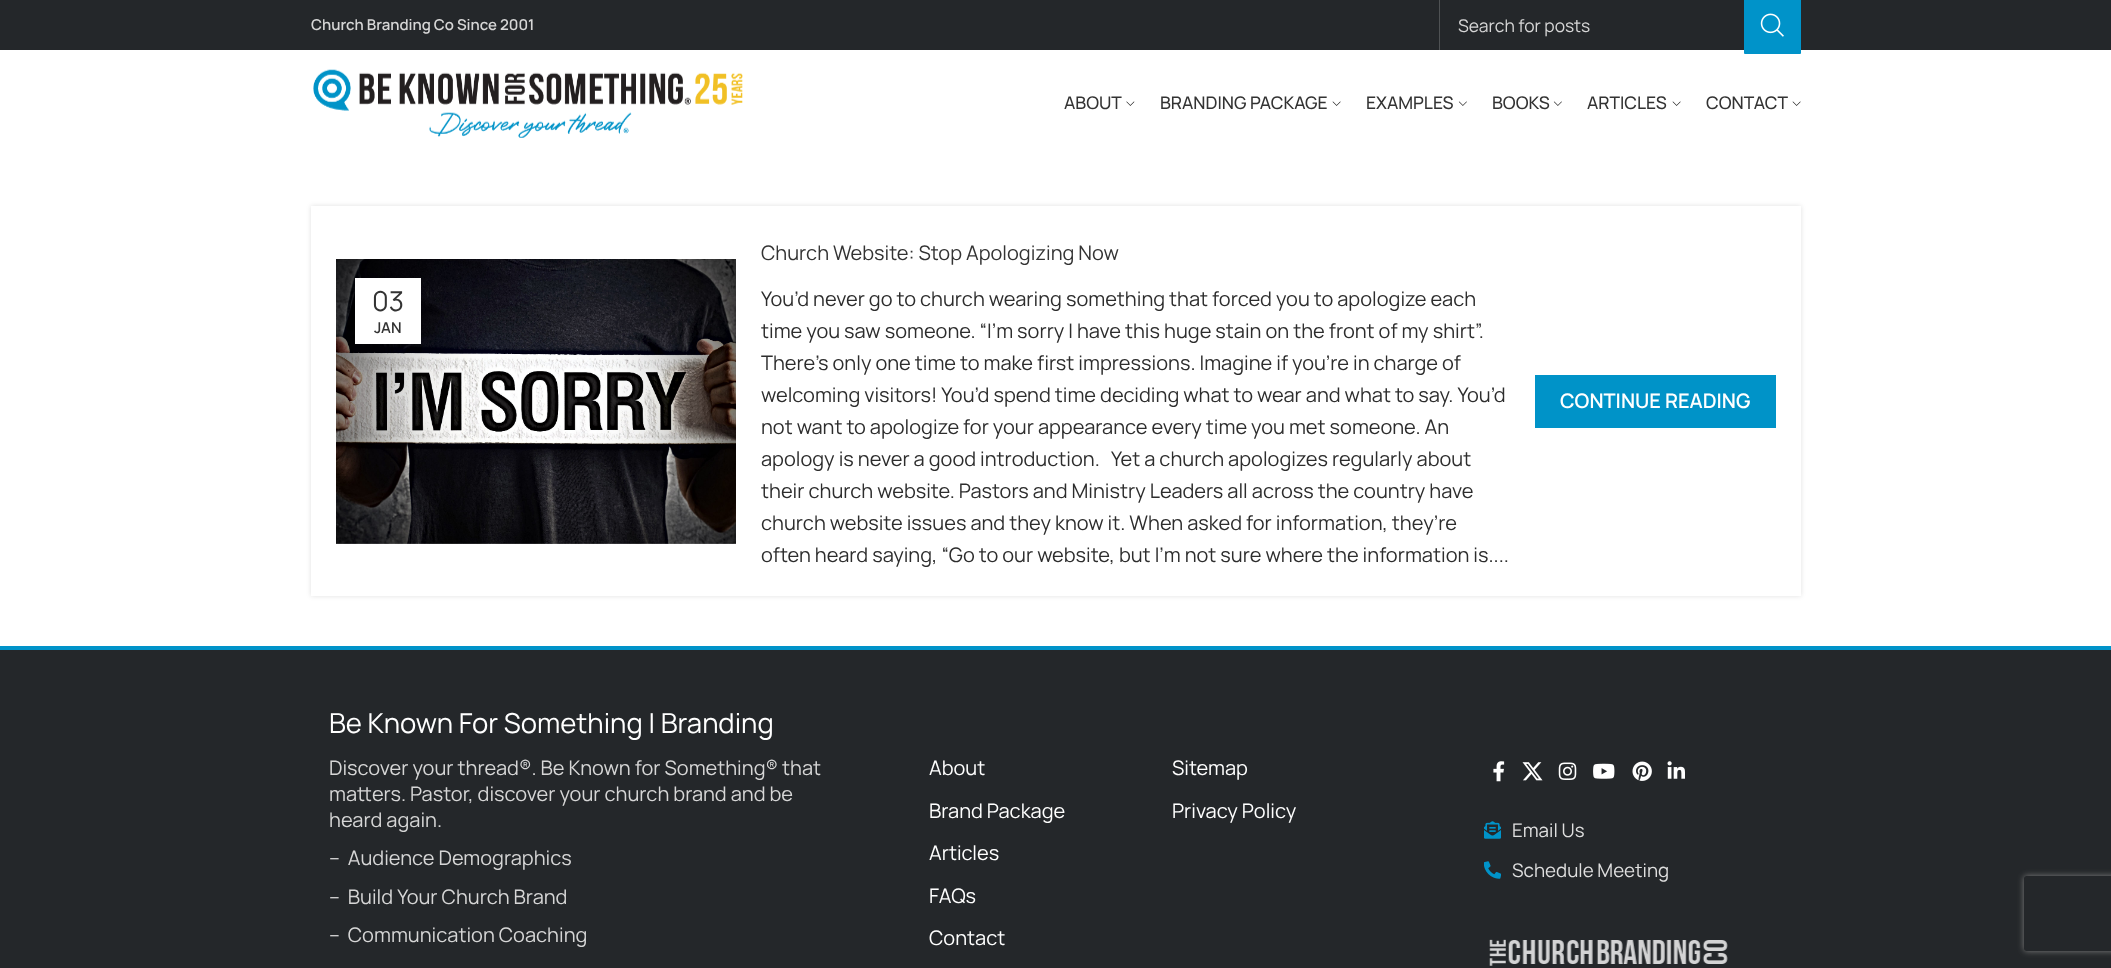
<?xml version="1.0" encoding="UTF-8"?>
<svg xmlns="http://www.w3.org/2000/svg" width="2111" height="968">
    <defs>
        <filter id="blur1" x="-50%" y="-200%" width="200%" height="500%"><feGaussianBlur stdDeviation="2.5"/></filter>
        <clipPath id="clip1"><path d="M 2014 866 H 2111 V 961 H 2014 Z M 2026.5 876 H 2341.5 C 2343 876 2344 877 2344 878.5 V 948.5 C 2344 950 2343 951 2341.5 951 H 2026.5 C 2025 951 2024 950 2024 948.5 V 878.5 C 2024 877 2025 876 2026.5 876 Z" clip-rule="evenodd"/></clipPath>
        <filter id="blur2" x="-50%" y="-200%" width="200%" height="500%"><feGaussianBlur stdDeviation="3"/></filter>
    </defs>
    <rect width="100%" height="100%" fill="#FFFFFF"/>
    <rect x="0" y="0" width="2111" height="50" fill="#24272A"/>
    <text x="311" y="30" font-family="Manrope" font-size="15" font-weight="600" fill="#D6D6D6">Church Branding Co Since 2001</text>
    <rect x="1439.5" y="-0.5" width="361" height="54" fill="none" stroke="#FFFFFF" stroke-opacity="0.2"/>
    <text x="1458" y="32" font-family="Manrope" font-size="17.5" fill="#D6D6D6">Search for posts</text>
    <rect x="1744" y="-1" width="57" height="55" rx="1" fill="#0093C9"/>
    <image x="1760" y="13" width="24" height="24" href="img_01.png"/>
    <image x="313" y="69" width="430" height="69" href="img_02.png"/>
    <text x="1064" y="109" font-family="Manrope" font-size="17.5" font-weight="500" fill="#333333">ABOUT</text>
    <image x="1126" y="101" width="9" height="5" href="img_03.png"/>
    <text x="1160" y="109" font-family="Manrope" font-size="17.5" font-weight="500" fill="#333333">BRANDING PACKAGE</text>
    <image x="1332" y="101" width="9" height="5" href="img_04.png"/>
    <text x="1366" y="109" font-family="Manrope" font-size="17.5" font-weight="500" fill="#333333">EXAMPLES</text>
    <image x="1458" y="101" width="9" height="5" href="img_05.png"/>
    <text x="1492" y="109" font-family="Manrope" font-size="17.5" font-weight="500" fill="#333333">BOOKS</text>
    <image x="1553" y="101" width="9" height="5" href="img_05.png"/>
    <text x="1587" y="109" font-family="Manrope" font-size="17.5" font-weight="500" fill="#333333">ARTICLES</text>
    <image x="1672" y="101" width="9" height="5" href="img_04.png"/>
    <text x="1706" y="109" font-family="Manrope" font-size="17.5" font-weight="500" fill="#333333">CONTACT</text>
    <image x="1792" y="101" width="9" height="5" href="img_04.png"/>
    <rect x="311" y="206" width="1490" height="390" fill="#000000" fill-opacity="0.12" filter="url(#blur1)"/>
    <rect x="311" y="206" width="1490" height="390" fill="#FFFFFF"/>
    <image x="336" y="259" width="400" height="285" href="img_06.png"/>
    <rect x="355" y="278" width="66" height="66" fill="#FFFFFF"/>
    <text x="372" y="311" font-family="Manrope" font-size="27.5" fill="#333333">03</text>
    <text x="374" y="333" font-family="Manrope" font-size="15" font-weight="600" fill="#333333">JAN</text>
    <text x="761" y="260" font-family="Manrope" font-size="20" fill="#333333">Church Website: Stop Apologizing Now</text>
    <text font-family="Manrope" font-size="20" fill="#2D2D2D">
        <tspan x="761" y="306">You’d never go to church wearing something that forced you to apologize each</tspan>
        <tspan x="761" y="338">time you saw someone. “I’m sorry I have this huge stain on the front of my shirt”.</tspan>
        <tspan x="761" y="370">There’s only one time to make first impressions. Imagine if you’re in charge of</tspan>
        <tspan x="761" y="402">welcoming visitors! You’d spend time deciding what to wear and what to say. You’d</tspan>
        <tspan x="761" y="434">not want to apologize for your appearance every time you met someone. An</tspan>
        <tspan x="761" y="466">apology is never a good introduction.</tspan>
    </text>
    <text x="1111" y="466" font-family="Manrope" font-size="20" fill="#2D2D2D">Yet a church apologizes regularly about</text>
    <text font-family="Manrope" font-size="20" fill="#2D2D2D">
        <tspan x="761" y="498">their church website. Pastors and Ministry Leaders all across the country have</tspan>
        <tspan x="761" y="530">church website issues and they know it. When asked for information, they’re</tspan>
        <tspan x="761" y="562">often heard saying, “Go to our website, but I’m not sure where the information is....</tspan>
    </text>
    <rect x="1535" y="375" width="241" height="53" fill="#0093C8"/>
    <text x="1560" y="408" font-family="Manrope" font-size="20" font-weight="600" fill="#FFFFFF">CONTINUE READING</text>
    <rect x="0" y="650" width="2111" height="318" fill="#24272A"/>
    <rect x="0" y="646" width="2111" height="4" fill="#0093C9"/>
    <text x="329" y="733" font-family="Manrope" font-size="27.5" fill="#FFFFFF">Be Known For Something | Branding</text>
    <text font-family="Manrope" font-size="20" fill="#D6D6D6" xml:space="preserve"><tspan x="329" y="775">Discover your thread®. Be Known for Something® that</tspan><tspan x="329" y="801">matters. Pastor, discover your church brand and be</tspan><tspan x="329" y="827">heard again.</tspan><tspan x="329" y="865">–  Audience Demographics</tspan><tspan x="329" y="904">–  Build Your Church Brand</tspan><tspan x="329" y="942">–  Communication Coaching</tspan></text>
    <text x="929" y="775" font-family="Manrope" font-size="20" fill="#FFFFFF">About</text>
    <text x="929" y="818" font-family="Manrope" font-size="20" fill="#FFFFFF">Brand Package</text>
    <text x="929" y="860" font-family="Manrope" font-size="20" fill="#FFFFFF">Articles</text>
    <text x="929" y="903" font-family="Manrope" font-size="20" fill="#FFFFFF">FAQs</text>
    <text x="929" y="945" font-family="Manrope" font-size="20" fill="#FFFFFF">Contact</text>
    <text x="1172" y="775" font-family="Manrope" font-size="20" fill="#FFFFFF">Sitemap</text>
    <text x="1172" y="818" font-family="Manrope" font-size="20" fill="#FFFFFF">Privacy Policy</text>
    <image x="1493" y="761" width="12" height="21" href="img_07.png"/>
    <image x="1522" y="762" width="21" height="19" href="img_08.png"/>
    <image x="1558" y="762" width="19" height="18" href="img_09.png"/>
    <image x="1593" y="763" width="22" height="16" href="img_10.png"/>
    <image x="1632" y="761" width="20" height="20" href="img_11.png"/>
    <image x="1667" y="761" width="18" height="18" href="img_12.png"/>
    <image x="1484" y="821" width="17" height="18" href="img_13.png"/>
    <text x="1512" y="837" font-family="Manrope" font-size="18.75" fill="#DFDFDF">Email Us</text>
    <image x="1484" y="861" width="17" height="18" href="img_14.png"/>
    <text x="1512" y="877" font-family="Manrope" font-size="18.75" fill="#DFDFDF">Schedule Meeting</text>
    <image x="1489" y="939" width="239" height="27" href="img_15.png"/>
    <g clip-path="url(#clip1)">
        <rect x="2024" y="876" width="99" height="75" rx="2.5" fill="#808080" filter="url(#blur2)"/>
    </g>
</svg>
